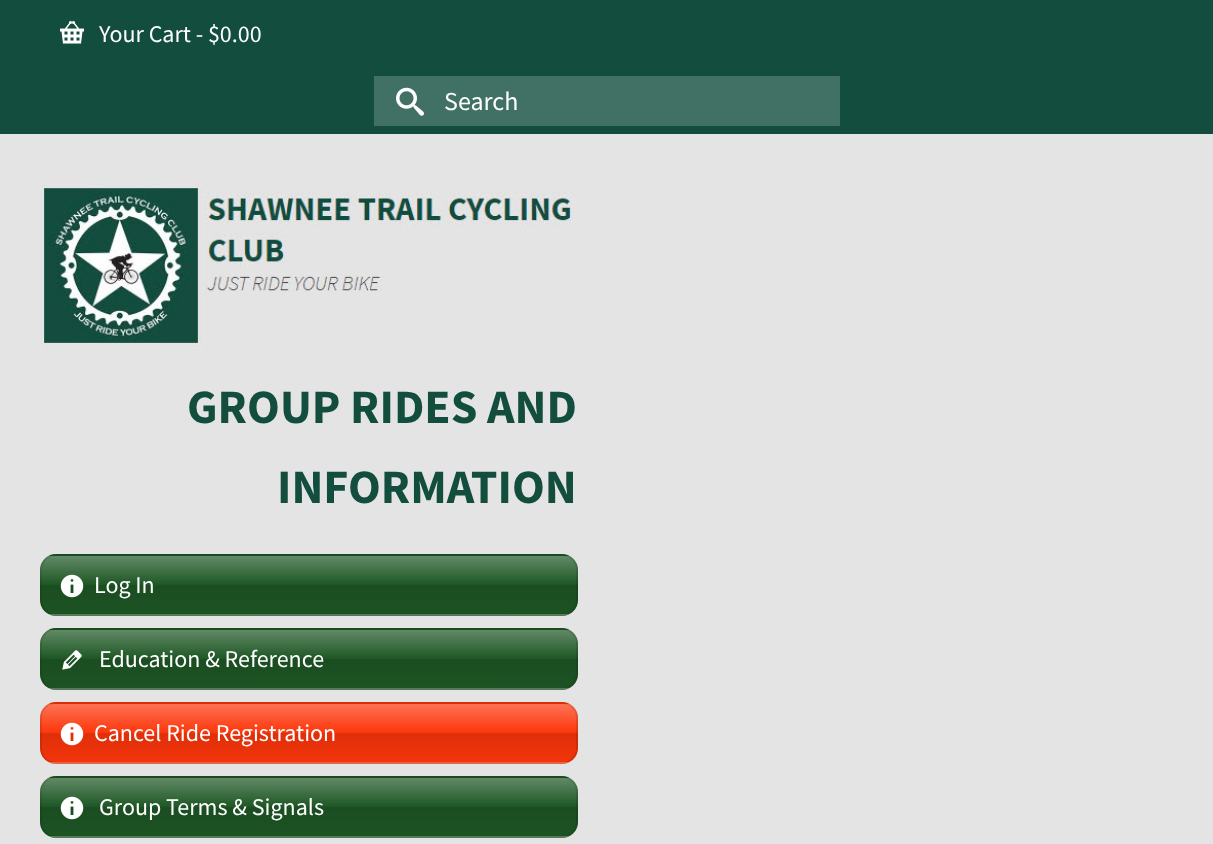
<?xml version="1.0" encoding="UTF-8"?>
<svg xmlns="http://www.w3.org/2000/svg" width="1213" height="844">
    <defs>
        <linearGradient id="g1" gradientUnits="userSpaceOnUse" x1="309" y1="498" x2="309" y2="556"><stop offset="0" stop-color="#FFFFFF" stop-opacity="0.3"/><stop offset="0.5" stop-color="#FFFFFF" stop-opacity="0"/><stop offset="0.5" stop-color="#000000" stop-opacity="0"/><stop offset="0.51" stop-color="#000000" stop-opacity="0.12"/><stop offset="1" stop-color="#000000" stop-opacity="0.04"/></linearGradient>
        <clipPath id="clip1"><rect x="40" y="554" width="538" height="62" rx="16"/></clipPath>
        <linearGradient id="g2" gradientUnits="userSpaceOnUse" x1="309" y1="556" x2="309" y2="614"><stop offset="0" stop-color="#FFFFFF" stop-opacity="0.3"/><stop offset="0.5" stop-color="#FFFFFF" stop-opacity="0"/><stop offset="0.5" stop-color="#000000" stop-opacity="0"/><stop offset="0.51" stop-color="#000000" stop-opacity="0.12"/><stop offset="1" stop-color="#000000" stop-opacity="0.04"/></linearGradient>
        <linearGradient id="g3" gradientUnits="userSpaceOnUse" x1="309" y1="614" x2="309" y2="672"><stop offset="0" stop-color="#FFFFFF" stop-opacity="0.3"/><stop offset="0.5" stop-color="#FFFFFF" stop-opacity="0"/><stop offset="0.5" stop-color="#000000" stop-opacity="0"/><stop offset="0.51" stop-color="#000000" stop-opacity="0.12"/><stop offset="1" stop-color="#000000" stop-opacity="0.04"/></linearGradient>
        <linearGradient id="g4" gradientUnits="userSpaceOnUse" x1="309" y1="572" x2="309" y2="630"><stop offset="0" stop-color="#FFFFFF" stop-opacity="0.3"/><stop offset="0.5" stop-color="#FFFFFF" stop-opacity="0"/><stop offset="0.5" stop-color="#000000" stop-opacity="0"/><stop offset="0.51" stop-color="#000000" stop-opacity="0.12"/><stop offset="1" stop-color="#000000" stop-opacity="0.04"/></linearGradient>
        <clipPath id="clip2"><rect x="40" y="628" width="538" height="62" rx="16"/></clipPath>
        <linearGradient id="g5" gradientUnits="userSpaceOnUse" x1="309" y1="630" x2="309" y2="688"><stop offset="0" stop-color="#FFFFFF" stop-opacity="0.3"/><stop offset="0.5" stop-color="#FFFFFF" stop-opacity="0"/><stop offset="0.5" stop-color="#000000" stop-opacity="0"/><stop offset="0.51" stop-color="#000000" stop-opacity="0.12"/><stop offset="1" stop-color="#000000" stop-opacity="0.04"/></linearGradient>
        <linearGradient id="g6" gradientUnits="userSpaceOnUse" x1="309" y1="688" x2="309" y2="746"><stop offset="0" stop-color="#FFFFFF" stop-opacity="0.3"/><stop offset="0.5" stop-color="#FFFFFF" stop-opacity="0"/><stop offset="0.5" stop-color="#000000" stop-opacity="0"/><stop offset="0.51" stop-color="#000000" stop-opacity="0.12"/><stop offset="1" stop-color="#000000" stop-opacity="0.04"/></linearGradient>
        <linearGradient id="g7" gradientUnits="userSpaceOnUse" x1="309" y1="646" x2="309" y2="704"><stop offset="0" stop-color="#FFFFFF" stop-opacity="0.3"/><stop offset="0.5" stop-color="#FFFFFF" stop-opacity="0"/><stop offset="0.5" stop-color="#000000" stop-opacity="0"/><stop offset="0.51" stop-color="#000000" stop-opacity="0.12"/><stop offset="1" stop-color="#000000" stop-opacity="0.04"/></linearGradient>
        <clipPath id="clip3"><rect x="40" y="702" width="538" height="62" rx="16"/></clipPath>
        <linearGradient id="g8" gradientUnits="userSpaceOnUse" x1="309" y1="704" x2="309" y2="762"><stop offset="0" stop-color="#FFFFFF" stop-opacity="0.3"/><stop offset="0.5" stop-color="#FFFFFF" stop-opacity="0"/><stop offset="0.5" stop-color="#000000" stop-opacity="0"/><stop offset="0.51" stop-color="#000000" stop-opacity="0.12"/><stop offset="1" stop-color="#000000" stop-opacity="0.04"/></linearGradient>
        <linearGradient id="g9" gradientUnits="userSpaceOnUse" x1="309" y1="762" x2="309" y2="820"><stop offset="0" stop-color="#FFFFFF" stop-opacity="0.3"/><stop offset="0.5" stop-color="#FFFFFF" stop-opacity="0"/><stop offset="0.5" stop-color="#000000" stop-opacity="0"/><stop offset="0.51" stop-color="#000000" stop-opacity="0.12"/><stop offset="1" stop-color="#000000" stop-opacity="0.04"/></linearGradient>
        <linearGradient id="g10" gradientUnits="userSpaceOnUse" x1="309" y1="720" x2="309" y2="778"><stop offset="0" stop-color="#FFFFFF" stop-opacity="0.3"/><stop offset="0.5" stop-color="#FFFFFF" stop-opacity="0"/><stop offset="0.5" stop-color="#000000" stop-opacity="0"/><stop offset="0.51" stop-color="#000000" stop-opacity="0.12"/><stop offset="1" stop-color="#000000" stop-opacity="0.04"/></linearGradient>
        <clipPath id="clip4"><rect x="40" y="776" width="538" height="62" rx="16"/></clipPath>
        <linearGradient id="g11" gradientUnits="userSpaceOnUse" x1="309" y1="778" x2="309" y2="836"><stop offset="0" stop-color="#FFFFFF" stop-opacity="0.3"/><stop offset="0.5" stop-color="#FFFFFF" stop-opacity="0"/><stop offset="0.5" stop-color="#000000" stop-opacity="0"/><stop offset="0.51" stop-color="#000000" stop-opacity="0.12"/><stop offset="1" stop-color="#000000" stop-opacity="0.04"/></linearGradient>
        <linearGradient id="g12" gradientUnits="userSpaceOnUse" x1="309" y1="836" x2="309" y2="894"><stop offset="0" stop-color="#FFFFFF" stop-opacity="0.3"/><stop offset="0.5" stop-color="#FFFFFF" stop-opacity="0"/><stop offset="0.5" stop-color="#000000" stop-opacity="0"/><stop offset="0.51" stop-color="#000000" stop-opacity="0.12"/><stop offset="1" stop-color="#000000" stop-opacity="0.04"/></linearGradient>
    </defs>
    <rect width="100%" height="100%" fill="#E4E4E4"/>
    <rect x="0" y="0" width="1213" height="134" fill="#124D3E"/>
    <image x="60" y="21" width="24" height="23" href="img_01.png"/>
    <text x="99" y="42" font-family="Source Sans Pro" font-size="24" fill="#FFFFFF">Your Cart - $0.00</text>
    <rect x="374" y="76" width="466" height="50" fill="#417165"/>
    <image x="396" y="87" width="28" height="29" href="img_02.png"/>
    <text x="444" y="110" font-family="Source Sans Pro" font-size="26" fill="#FFFFFF">Search</text>
    <image x="40" y="184" width="533" height="164" href="img_03.png"/>
    <text x="187" y="423" font-family="Source Sans Pro" font-size="48" font-weight="700" fill="#124D3E">GROUP RIDES AND</text>
    <text x="277" y="503" font-family="Source Sans Pro" font-size="48" font-weight="700" fill="#124D3E">INFORMATION</text>
    <rect x="40" y="554" width="538" height="62" rx="16" fill="#1E5725"/>
    <rect x="49" y="554" width="520" height="2" fill="url(#g1)"/>
    <g clip-path="url(#clip1)">
        <rect x="40" y="556" width="538" height="58" fill="url(#g2)"/>
        <rect x="40" y="614" width="538" height="2" fill="url(#g3)"/>
    </g>
    <rect x="41" y="555" width="536" height="60" rx="15" fill="none" stroke="#000000" stroke-opacity="0.1" stroke-width="2"/>
    <image x="60" y="574" width="24" height="24" href="img_04.png"/>
    <text x="94" y="593" font-family="Source Sans Pro" font-size="24" fill="#FFFFFF">Log In</text>
    <rect x="40" y="628" width="538" height="62" rx="16" fill="#1E5725"/>
    <rect x="49" y="628" width="520" height="2" fill="url(#g4)"/>
    <g clip-path="url(#clip2)">
        <rect x="40" y="630" width="538" height="58" fill="url(#g5)"/>
        <rect x="40" y="688" width="538" height="2" fill="url(#g6)"/>
    </g>
    <rect x="41" y="629" width="536" height="60" rx="15" fill="none" stroke="#000000" stroke-opacity="0.1" stroke-width="2"/>
    <image x="62" y="650" width="20" height="20" href="img_05.png"/>
    <text x="99" y="667" font-family="Source Sans Pro" font-size="24" fill="#FFFFFF">Education &amp; Reference</text>
    <rect x="40" y="702" width="538" height="62" rx="16" fill="#FD360B"/>
    <rect x="49" y="702" width="520" height="2" fill="url(#g7)"/>
    <g clip-path="url(#clip3)">
        <rect x="40" y="704" width="538" height="58" fill="url(#g8)"/>
        <rect x="40" y="762" width="538" height="2" fill="url(#g9)"/>
    </g>
    <rect x="41" y="703" width="536" height="60" rx="15" fill="none" stroke="#000000" stroke-opacity="0.1" stroke-width="2"/>
    <image x="60" y="722" width="24" height="24" href="img_06.png"/>
    <text x="94" y="741" font-family="Source Sans Pro" font-size="24" fill="#FFFFFF">Cancel Ride Registration</text>
    <rect x="40" y="776" width="538" height="62" rx="16" fill="#1E5725"/>
    <rect x="49" y="776" width="520" height="2" fill="url(#g10)"/>
    <g clip-path="url(#clip4)">
        <rect x="40" y="778" width="538" height="58" fill="url(#g11)"/>
        <rect x="40" y="836" width="538" height="2" fill="url(#g12)"/>
    </g>
    <rect x="41" y="777" width="536" height="60" rx="15" fill="none" stroke="#000000" stroke-opacity="0.1" stroke-width="2"/>
    <image x="60" y="796" width="24" height="24" href="img_04.png"/>
    <text x="99" y="815" font-family="Source Sans Pro" font-size="24" fill="#FFFFFF">Group Terms &amp; Signals</text>
</svg>
